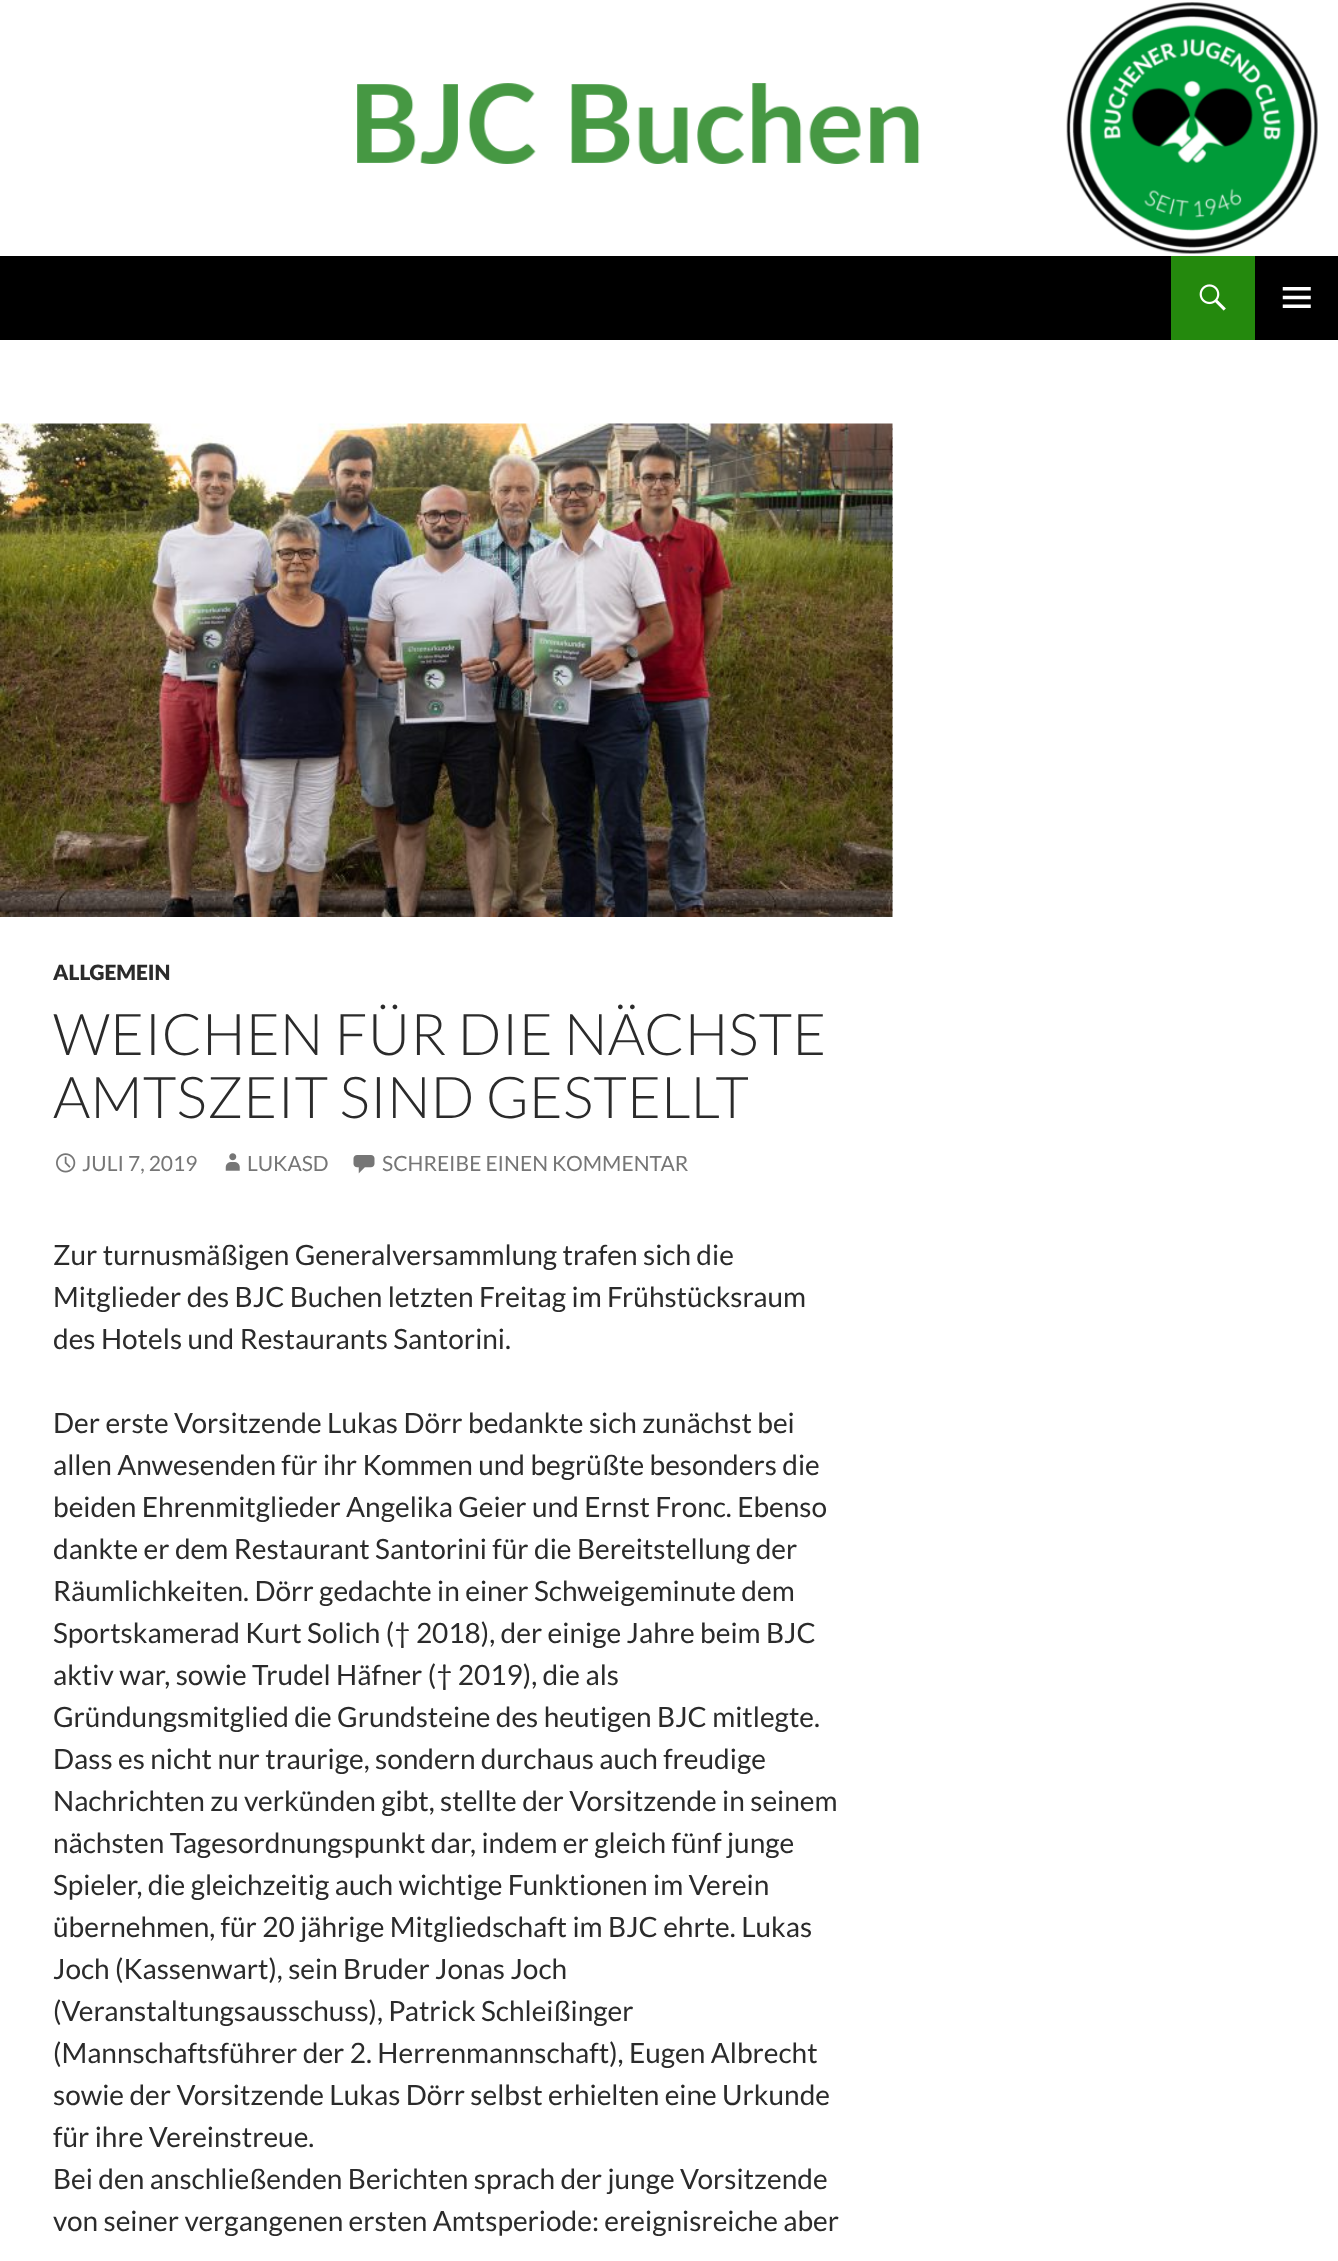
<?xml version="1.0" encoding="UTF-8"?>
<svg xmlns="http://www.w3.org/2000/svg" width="1338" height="2261">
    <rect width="100%" height="100%" fill="#FFFFFF"/>
    <image x="357" y="2" width="961" height="252" href="img_01.png"/>
    <rect x="0" y="256" width="1338" height="84" fill="#000000"/>
    <rect x="1171" y="256" width="84" height="84" fill="#24890D"/>
    <image x="1199" y="284" width="27" height="27" href="img_02.png"/>
    <image x="1282" y="287" width="29" height="21" href="img_03.png"/>
    <rect x="892" y="427" width="1" height="485" fill="#B2B2B2"/>
    <image x="892" y="424" width="1" height="493" href="img_04.png"/>
    <image x="0" y="423" width="893" height="494" href="img_05.png"/>
    <text x="53" y="980" font-family="Lato" font-size="21" font-weight="900" fill="#2B2B2B">ALLGEMEIN</text>
    <text font-family="Lato" font-size="57.75" font-weight="300" fill="#2B2B2B">
        <tspan x="53" y="1055">WEICHEN FÜR DIE NÄCHSTE</tspan>
        <tspan x="53" y="1118">AMTSZEIT SIND GESTELLT</tspan>
    </text>
    <image x="56" y="1153" width="20" height="20" href="img_06.png"/>
    <text x="82" y="1171" font-family="Lato" font-size="21" fill="#767676">JULI 7, 2019</text>
    <image x="225" y="1153" width="15" height="18" href="img_07.png"/>
    <text x="247" y="1171" font-family="Lato" font-size="21" fill="#767676">LUKASD</text>
    <image x="353" y="1155" width="22" height="19" href="img_08.png"/>
    <text x="382" y="1171" font-family="Lato" font-size="21" fill="#767676">SCHREIBE EINEN KOMMENTAR</text>
    <text font-family="Lato" font-size="28" fill="#2B2B2B">
        <tspan x="53" y="1265">Zur turnusmäßigen Generalversammlung trafen sich die</tspan>
        <tspan x="53" y="1307">Mitglieder des BJC Buchen letzten Freitag im Frühstücksraum</tspan>
        <tspan x="53" y="1349">des Hotels und Restaurants Santorini.</tspan>
    </text>
    <text font-family="Lato" font-size="28" fill="#2B2B2B">
        <tspan x="53" y="1433">Der erste Vorsitzende Lukas Dörr bedankte sich zunächst bei</tspan>
        <tspan x="53" y="1475">allen Anwesenden für ihr Kommen und begrüßte besonders die</tspan>
        <tspan x="53" y="1517">beiden Ehrenmitglieder Angelika Geier und Ernst Fronc. Ebenso</tspan>
        <tspan x="53" y="1559">dankte er dem Restaurant Santorini für die Bereitstellung der</tspan>
        <tspan x="53" y="1601">Räumlichkeiten. Dörr gedachte in einer Schweigeminute dem</tspan>
        <tspan x="53" y="1643">Sportskamerad Kurt Solich († 2018), der einige Jahre beim BJC</tspan>
        <tspan x="53" y="1685">aktiv war, sowie Trudel Häfner († 2019), die als</tspan>
        <tspan x="53" y="1727">Gründungsmitglied die Grundsteine des heutigen BJC mitlegte.</tspan>
        <tspan x="53" y="1769">Dass es nicht nur traurige, sondern durchaus auch freudige</tspan>
        <tspan x="53" y="1811">Nachrichten zu verkünden gibt, stellte der Vorsitzende in seinem</tspan>
        <tspan x="53" y="1853">nächsten Tagesordnungspunkt dar, indem er gleich fünf junge</tspan>
        <tspan x="53" y="1895">Spieler, die gleichzeitig auch wichtige Funktionen im Verein</tspan>
        <tspan x="53" y="1937">übernehmen, für 20 jährige Mitgliedschaft im BJC ehrte. Lukas</tspan>
        <tspan x="53" y="1979">Joch (Kassenwart), sein Bruder Jonas Joch</tspan>
        <tspan x="53" y="2021">(Veranstaltungsausschuss), Patrick Schleißinger</tspan>
        <tspan x="53" y="2063">(Mannschaftsführer der 2. Herrenmannschaft), Eugen Albrecht</tspan>
        <tspan x="53" y="2105">sowie der Vorsitzende Lukas Dörr selbst erhielten eine Urkunde</tspan>
        <tspan x="53" y="2147">für ihre Vereinstreue.</tspan>
        <tspan x="53" y="2189">Bei den anschließenden Berichten sprach der junge Vorsitzende</tspan>
        <tspan x="53" y="2231">von seiner vergangenen ersten Amtsperiode: ereignisreiche aber</tspan>
    </text>
</svg>
